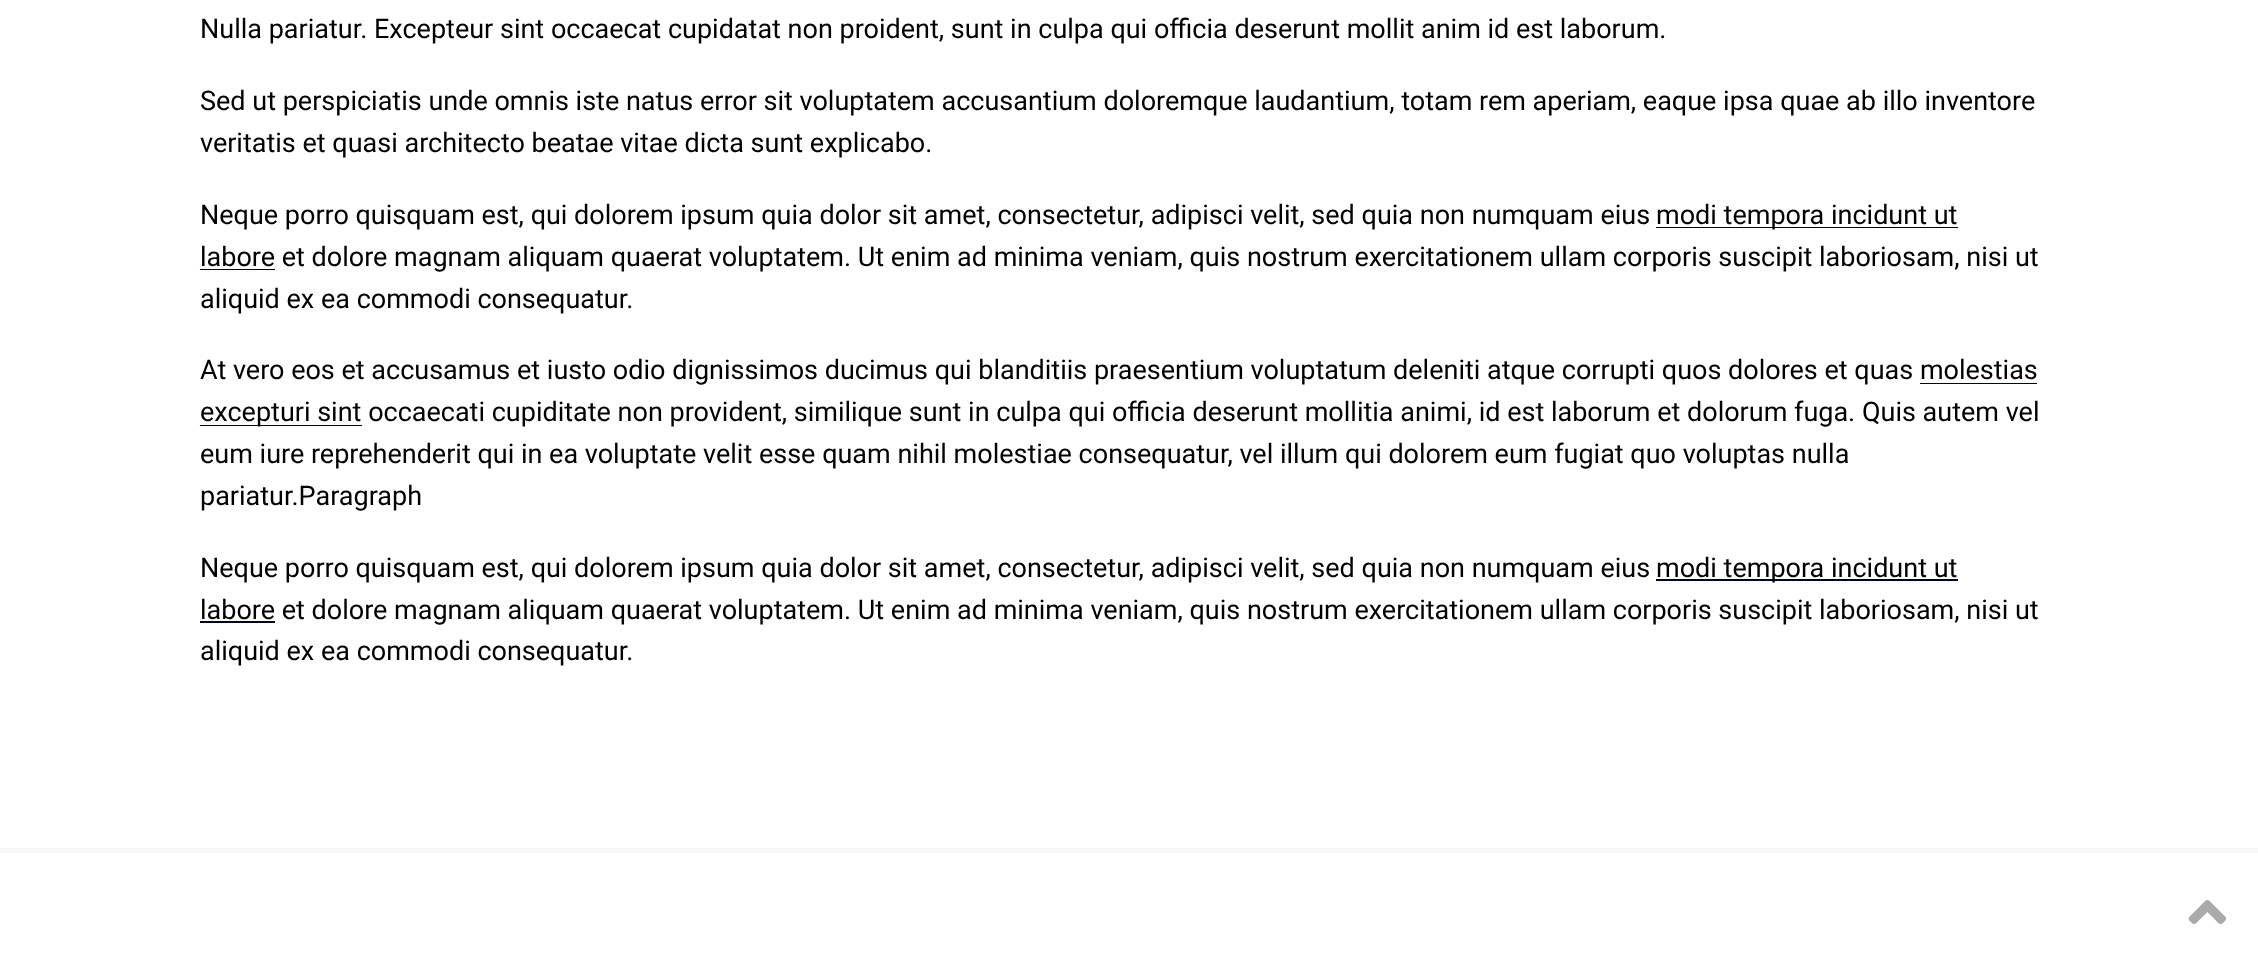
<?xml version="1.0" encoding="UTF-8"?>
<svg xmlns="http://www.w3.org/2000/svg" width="2258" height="957">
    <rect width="100%" height="100%" fill="#FFFFFF"/>
    <text x="200" y="38" font-family="Roboto" font-size="27" fill="#000000">Nulla pariatur. Excepteur sint occaecat cupidatat non proident, sunt in culpa qui officia deserunt mollit anim id est laborum.</text>
    <text font-family="Roboto" font-size="27" fill="#000000">
        <tspan x="200" y="110">Sed ut perspiciatis unde omnis iste natus error sit voluptatem accusantium doloremque laudantium, totam rem aperiam, eaque ipsa quae ab illo inventore</tspan>
        <tspan x="200" y="152">veritatis et quasi architecto beatae vitae dicta sunt explicabo.</tspan>
    </text>
    <text x="200" y="224" font-family="Roboto" font-size="27" fill="#000000">Neque porro quisquam est, qui dolorem ipsum quia dolor sit amet, consectetur, adipisci velit, sed quia non numquam eius</text>
    <rect x="1656" y="227" width="302" height="1" fill="#00051F"/>
    <text x="1656" y="224" font-family="Roboto" font-size="27" fill="#000000">modi tempora incidunt ut</text>
    <rect x="200" y="269" width="75" height="1" fill="#00051F"/>
    <text font-family="Roboto" font-size="27" fill="#000000">
        <tspan x="200" y="266">labore et dolore magnam aliquam quaerat voluptatem. Ut enim ad minima veniam, quis nostrum exercitationem ullam corporis suscipit laboriosam, nisi ut</tspan>
        <tspan x="200" y="308">aliquid ex ea commodi consequatur.</tspan>
    </text>
    <text x="200" y="379" font-family="Roboto" font-size="27" fill="#000000">At vero eos et accusamus et iusto odio dignissimos ducimus qui blanditiis praesentium voluptatum deleniti atque corrupti quos dolores et quas molestias</text>
    <rect x="200" y="425" width="162" height="1" fill="#00051F"/>
    <text x="200" y="421" font-family="Roboto" font-size="27" fill="#000000">excepturi sint occaecati cupiditate non provident, similique sunt in culpa qui officia deserunt mollitia animi, id est laborum et dolorum fuga. Quis autem vel</text>
    <rect x="1920" y="383" width="117" height="1" fill="#00051F"/>
    <text font-family="Roboto" font-size="27" fill="#000000">
        <tspan x="200" y="463">eum iure reprehenderit qui in ea voluptate velit esse quam nihil molestiae consequatur, vel illum qui dolorem eum fugiat quo voluptas nulla</tspan>
        <tspan x="200" y="505">pariatur.Paragraph</tspan>
    </text>
    <text x="200" y="577" font-family="Roboto" font-size="27" fill="#000000">Neque porro quisquam est, qui dolorem ipsum quia dolor sit amet, consectetur, adipisci velit, sed quia non numquam eius</text>
    <rect x="1656" y="579" width="302" height="2" fill="#00051F"/>
    <text x="1656" y="577" font-family="Roboto" font-size="27" fill="#000000">modi tempora incidunt ut</text>
    <rect x="200" y="621" width="75" height="2" fill="#00051F"/>
    <text font-family="Roboto" font-size="27" fill="#000000">
        <tspan x="200" y="619">labore et dolore magnam aliquam quaerat voluptatem. Ut enim ad minima veniam, quis nostrum exercitationem ullam corporis suscipit laboriosam, nisi ut</tspan>
        <tspan x="200" y="660">aliquid ex ea commodi consequatur.</tspan>
    </text>
    <rect x="0" y="848" width="2258" height="5" fill="#F7F7F7"/>
    <image x="2188" y="900" width="39" height="24" href="img_01.png"/>
</svg>
